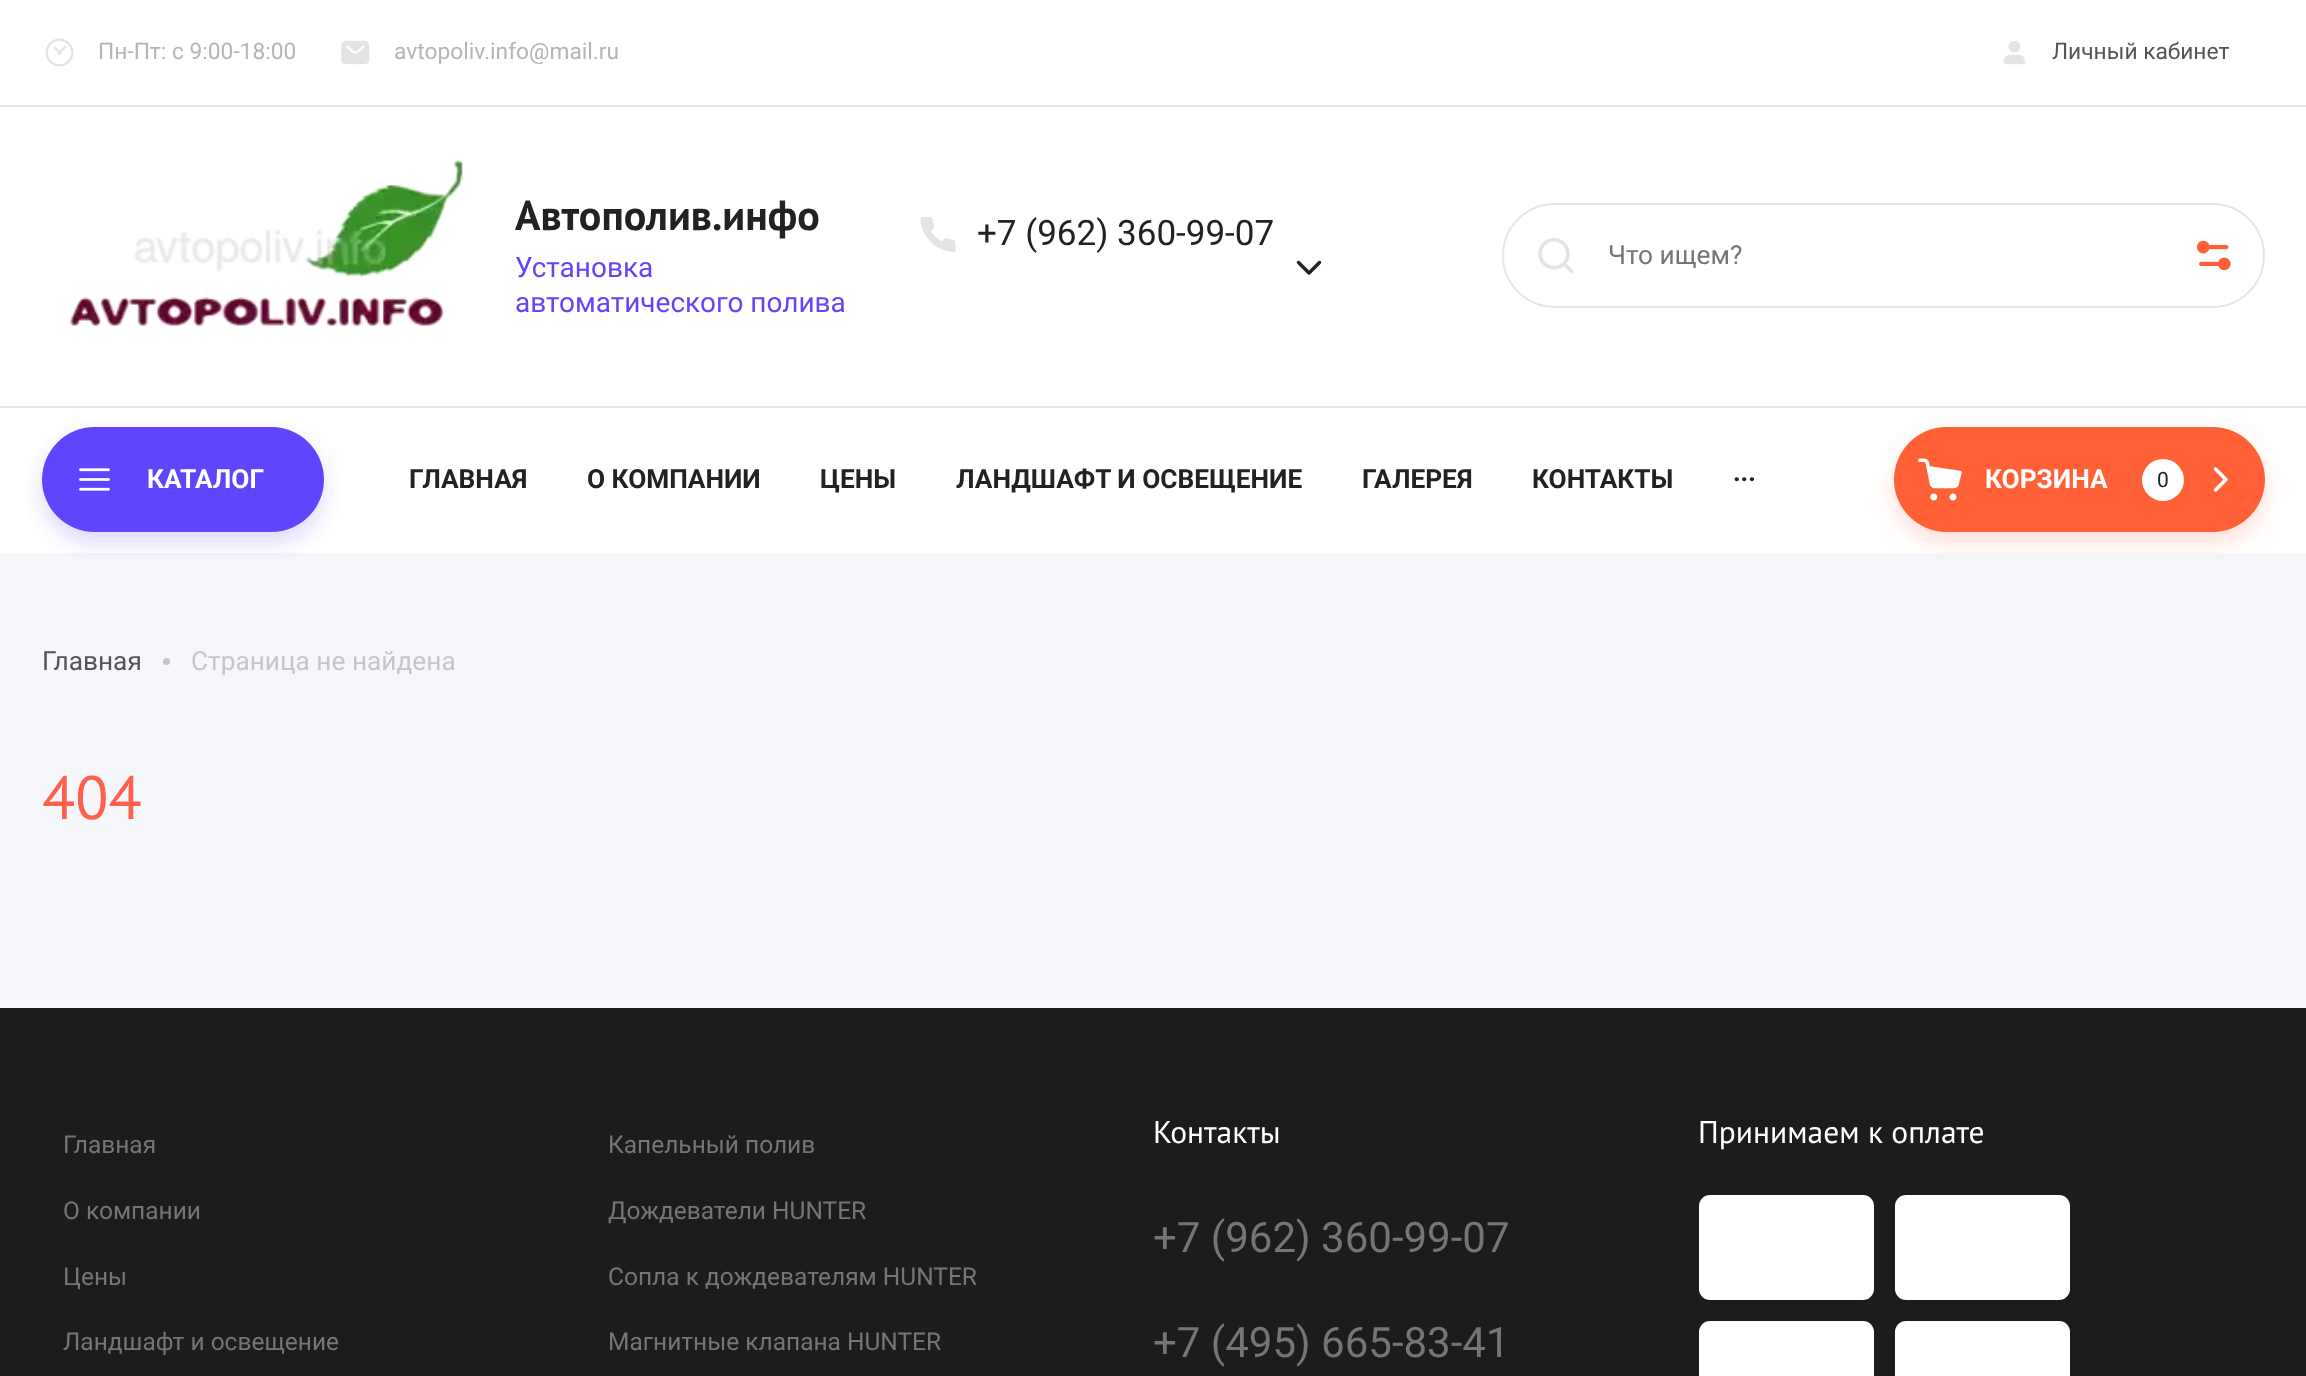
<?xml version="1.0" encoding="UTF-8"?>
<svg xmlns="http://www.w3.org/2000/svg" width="2306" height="1376">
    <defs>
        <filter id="blur1" x="-50%" y="-200%" width="200%" height="500%"><feGaussianBlur stdDeviation="10.5"/></filter>
    </defs>
    <rect width="100%" height="100%" fill="#F6F7FB"/>
    <rect x="0" y="0" width="2306" height="553" fill="#FFFFFF"/>
    <rect x="0" y="105" width="2306" height="2" fill="#E6E6E6"/>
    <image x="45" y="38" width="29" height="29" href="img_01.png"/>
    <text x="98" y="59" font-family="Roboto" font-size="22.75" fill="#B5B5B5">Пн-Пт: с 9:00-18:00</text>
    <image x="341" y="40" width="29" height="25" href="img_02.png"/>
    <text x="394" y="59" font-family="Roboto" font-size="22.75" fill="#B5B5B5">avtopoliv.info@mail.ru</text>
    <image x="2003" y="41" width="22" height="24" href="img_03.png"/>
    <text x="2052" y="59" font-family="Roboto" font-size="22.75" fill="#555555">Личный кабинет</text>
    <rect x="0" y="406" width="2306" height="2" fill="#E6E6E6"/>
    <image x="69" y="160" width="394" height="166" href="img_04.png"/>
    <text x="515" y="230" font-family="PT Sans" font-size="42" font-weight="700" fill="#222222">Автополив.инфо</text>
    <text font-family="Roboto" font-size="28" fill="#6045FF">
        <tspan x="515" y="277">Установка</tspan>
        <tspan x="515" y="312">автоматического полива</tspan>
    </text>
    <image x="920" y="217" width="36" height="35" href="img_05.png"/>
    <text x="977" y="245" font-family="Roboto" font-size="35" fill="#222222">+7 (962) 360-99-07</text>
    <image x="1296" y="260" width="26" height="15" href="img_06.png"/>
    <rect x="1503" y="204" width="761" height="103" rx="51.5" fill="none" stroke="#E6E6E6" stroke-width="2"/>
    <image x="1538" y="238" width="36" height="35" href="img_07.png"/>
    <text x="1608" y="264" font-family="Roboto" font-size="26.25" fill="#757575">Что ищем?</text>
    <image x="2197" y="240" width="34" height="31" href="img_08.png"/>
    <rect x="42" y="438" width="282" height="105" rx="52.5" fill="#6045FF" fill-opacity="0.2" filter="url(#blur1)"/>
    <rect x="42" y="427" width="282" height="105" rx="52.5" fill="#6045FF"/>
    <image x="79" y="468" width="31" height="23" href="img_09.png"/>
    <text x="147" y="488" font-family="Roboto" font-size="26.25" font-weight="700" fill="#FFFFFF">КАТАЛОГ</text>
    <text x="409" y="488" font-family="Roboto" font-size="26.25" font-weight="700" fill="#222222">ГЛАВНАЯ</text>
    <text x="587" y="488" font-family="Roboto" font-size="26.25" font-weight="700" fill="#222222">О КОМПАНИИ</text>
    <text x="820" y="488" font-family="Roboto" font-size="26.25" font-weight="700" fill="#222222">ЦЕНЫ</text>
    <text x="956" y="488" font-family="Roboto" font-size="26.25" font-weight="700" fill="#222222">ЛАНДШАФТ И ОСВЕЩЕНИЕ</text>
    <text x="1362" y="488" font-family="Roboto" font-size="26.25" font-weight="700" fill="#222222">ГАЛЕРЕЯ</text>
    <text x="1532" y="488" font-family="Roboto" font-size="26.25" font-weight="700" fill="#222222">КОНТАКТЫ</text>
    <text x="1733" y="481" font-family="Roboto" font-size="26.25" font-weight="700" fill="#222222">...</text>
    <rect x="1894" y="438" width="371" height="105" rx="52.5" fill="#FF6036" fill-opacity="0.2" filter="url(#blur1)"/>
    <rect x="1894" y="427" width="371" height="105" rx="52.5" fill="#FF6036"/>
    <image x="1918" y="458" width="44" height="43" href="img_10.png"/>
    <text x="1985" y="488" font-family="Roboto" font-size="26.25" font-weight="700" fill="#FFFFFF">КОРЗИНА</text>
    <circle cx="2163" cy="480" r="21" fill="#FFFFFF"/>
    <text x="2157" y="487" font-family="Roboto" font-size="21" fill="#222222">0</text>
    <image x="2213" y="467" width="15" height="25" href="img_11.png"/>
    <text x="42" y="670" font-family="Roboto" font-size="26.25" fill="#555555">Главная</text>
    <circle cx="166.5" cy="661.5" r="3.5" fill="#C6C6C9"/>
    <text x="191" y="670" font-family="Roboto" font-size="26.25" fill="#C6C6C9">Страница не найдена</text>
    <text x="42" y="819" font-family="PT Sans" font-size="61" fill="#FF604E">404</text>
    <rect x="0" y="1008" width="2306" height="368" fill="#1C1C1D"/>
    <text x="63" y="1153" font-family="Roboto" font-size="24.5" fill="#757575">Главная</text>
    <text x="63" y="1219" font-family="Roboto" font-size="24.5" fill="#757575">О компании</text>
    <text x="63" y="1285" font-family="Roboto" font-size="24.5" fill="#757575">Цены</text>
    <text x="63" y="1350" font-family="Roboto" font-size="24.5" fill="#757575">Ландшафт и освещение</text>
    <text x="608" y="1153" font-family="Roboto" font-size="24.5" fill="#757575">Капельный полив</text>
    <text x="608" y="1219" font-family="Roboto" font-size="24.5" fill="#757575">Дождеватели HUNTER</text>
    <text x="608" y="1285" font-family="Roboto" font-size="24.5" fill="#757575">Сопла к дождевателям HUNTER</text>
    <text x="608" y="1350" font-family="Roboto" font-size="24.5" fill="#757575">Магнитные клапана HUNTER</text>
    <text x="1153" y="1143" font-family="PT Sans" font-size="31.5" fill="#FFFFFF">Контакты</text>
    <text x="1153" y="1252" font-family="Roboto" font-size="42" fill="#757575">+7 (962) 360-99-07</text>
    <text x="1153" y="1357" font-family="Roboto" font-size="42" fill="#757575">+7 (495) 665-83-41</text>
    <text x="1698" y="1143" font-family="PT Sans" font-size="31.5" fill="#FFFFFF">Принимаем к оплате</text>
    <rect x="1699" y="1195" width="175" height="105" rx="11" fill="#FFFFFF"/>
    <rect x="1895" y="1195" width="175" height="105" rx="11" fill="#FFFFFF"/>
    <rect x="1699" y="1321" width="175" height="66" rx="11" fill="#FFFFFF"/>
    <rect x="1895" y="1321" width="175" height="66" rx="11" fill="#FFFFFF"/>
</svg>
